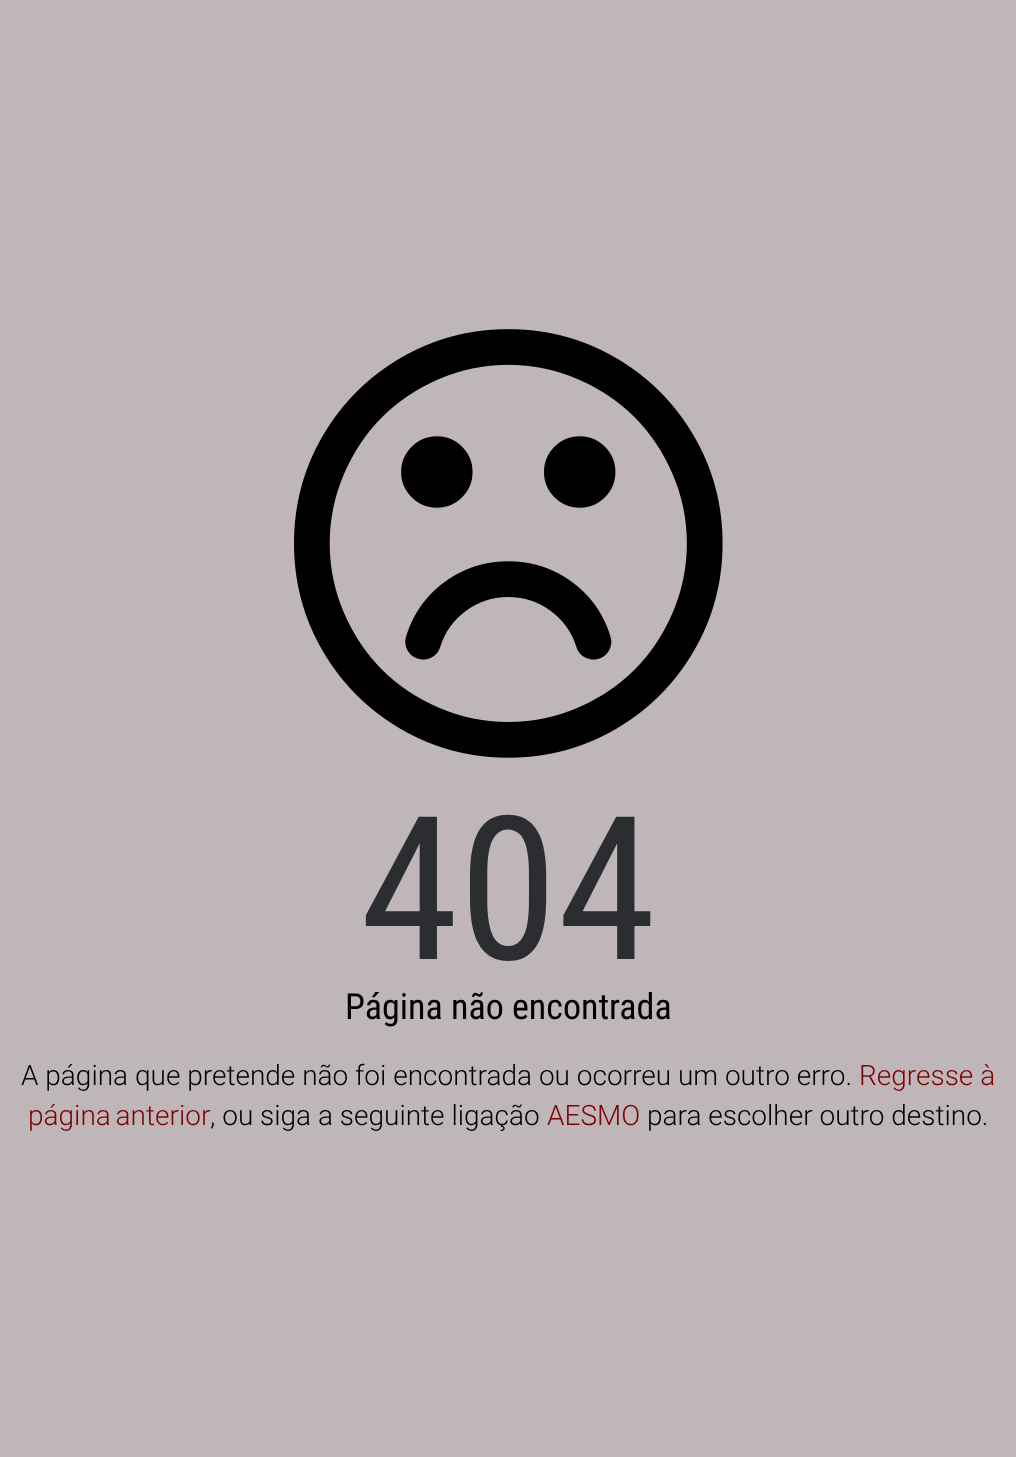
<?xml version="1.0" encoding="UTF-8"?>
<svg xmlns="http://www.w3.org/2000/svg" width="1016" height="1457">
    <rect width="100%" height="100%" fill="#BFB6BA"/>
    <image x="294" y="329" width="429" height="429" href="img_01.png"/>
    <text x="360" y="959" font-family="Roboto Condensed" font-size="200" fill="#2C2D30">404</text>
    <text x="345" y="1019" font-family="Roboto Condensed" font-size="36" fill="#000000">Página não encontrada</text>
    <text x="21" y="1085" font-family="Roboto" font-size="28" font-weight="300" fill="#000000">A página que pretende não foi encontrada ou ocorreu um outro erro.</text>
    <text x="859" y="1085" font-family="Roboto" font-size="28" font-weight="300" fill="#7E0303">Regresse à</text>
    <text x="28" y="1125" word-spacing="-2" font-family="Roboto" font-size="28" font-weight="300" fill="#7E0303">página anterior</text>
    <text x="210" y="1125" font-family="Roboto" font-size="28" font-weight="300" fill="#000000">, ou siga a seguinte ligação</text>
    <text x="547" y="1125" font-family="Roboto" font-size="28" font-weight="300" fill="#7E0303">AESMO</text>
    <text x="647" y="1125" font-family="Roboto" font-size="28" font-weight="300" fill="#000000">para escolher outro destino.</text>
</svg>
